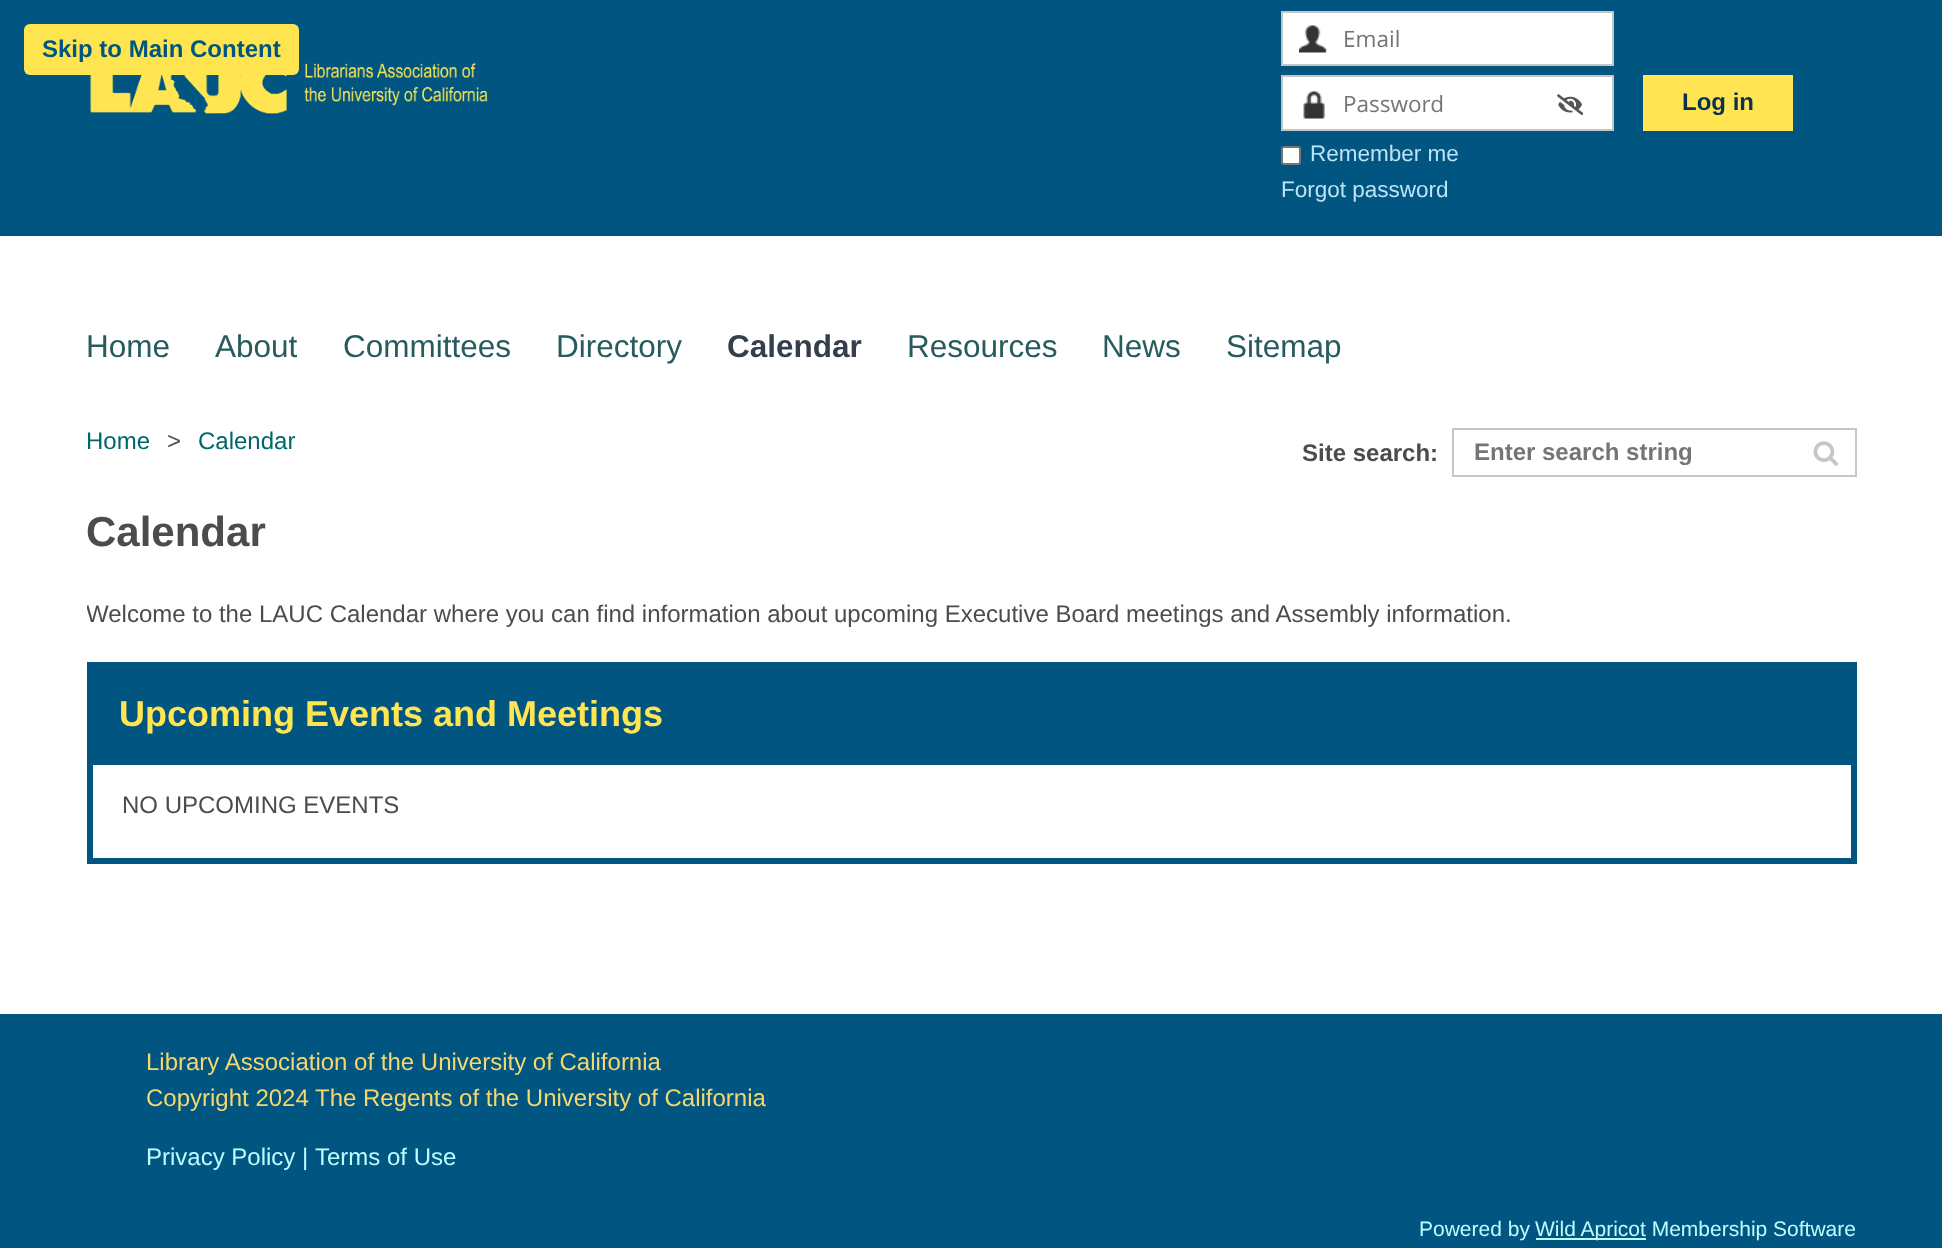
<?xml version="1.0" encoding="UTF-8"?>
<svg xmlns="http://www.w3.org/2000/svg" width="1942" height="1248">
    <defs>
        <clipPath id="clip1"><rect x="87" y="597" width="1770" height="35"/></clipPath>
    </defs>
    <rect width="100%" height="100%" fill="#FFFFFF"/>
    <rect x="0" y="0" width="1942" height="236" fill="#005581"/>
    <image x="90" y="63" width="398" height="51" href="img_01.png"/>
    <rect x="1283" y="13" width="329" height="51" fill="#FFFFFF"/>
    <image x="1299" y="25" width="28" height="28" href="img_02.png"/>
    <rect x="1282" y="12" width="331" height="53" fill="none" stroke="#C6C6C6" stroke-width="2"/>
    <text x="1343" y="47" font-family="Open Sans" font-size="22.5" fill="#757575">Email</text>
    <rect x="1283" y="77" width="329" height="52" fill="#FFFFFF"/>
    <image x="1303" y="91" width="22" height="28" href="img_03.png"/>
    <rect x="1282" y="76" width="331" height="54" fill="none" stroke="#C6C6C6" stroke-width="2"/>
    <text x="1343" y="112" font-family="Open Sans" font-size="22.5" fill="#757575">Password</text>
    <image x="1557" y="94" width="27" height="22" href="img_04.png"/>
    <rect x="1643" y="75" width="150" height="56" fill="#FFE552"/>
    <text x="1682" y="110" font-family="Liberation Sans" font-size="24" font-weight="700" fill="#0A3055">Log in</text>
    <rect x="1282" y="147" width="18" height="17" rx="2" fill="#FFFFFF" stroke="#767676" stroke-width="2"/>
    <text x="1310" y="161" font-family="Liberation Sans" font-size="22.5" fill="#BDE3F6">Remember me</text>
    <text x="1281" y="197" font-family="Liberation Sans" font-size="22.5" fill="#BDE3F6">Forgot password</text>
    <rect x="24" y="24" width="275" height="51" rx="6" fill="#FEE550"/>
    <text x="42" y="57" font-family="Liberation Sans" font-size="24" font-weight="700" fill="#005581">Skip to Main Content</text>
    <text x="86" y="357" font-family="Liberation Sans" font-size="31.5" fill="#275B5D">Home</text>
    <text x="215" y="357" font-family="Liberation Sans" font-size="31.5" fill="#275B5D">About</text>
    <text x="343" y="357" font-family="Liberation Sans" font-size="31.5" fill="#275B5D">Committees</text>
    <text x="556" y="357" font-family="Liberation Sans" font-size="31.5" fill="#275B5D">Directory</text>
    <text x="727" y="357" font-family="Liberation Sans" font-size="31.5" font-weight="700" fill="#333F4C">Calendar</text>
    <text x="907" y="357" font-family="Liberation Sans" font-size="31.5" fill="#275B5D">Resources</text>
    <text x="1102" y="357" font-family="Liberation Sans" font-size="31.5" fill="#275B5D">News</text>
    <text x="1226" y="357" font-family="Liberation Sans" font-size="31.5" fill="#275B5D">Sitemap</text>
    <text x="86" y="449" font-family="Liberation Sans" font-size="24" fill="#00666C">Home</text>
    <text x="167" y="449" font-family="Liberation Sans" font-size="24" fill="#4C4C4C">&gt;</text>
    <text x="198" y="449" font-family="Liberation Sans" font-size="24" fill="#00666C">Calendar</text>
    <text x="1302" y="461" font-family="Liberation Sans" font-size="24" font-weight="700" fill="#4C4C4C">Site search:</text>
    <rect x="1453" y="429" width="403" height="47" fill="none" stroke="#C6C6C6" stroke-width="2"/>
    <text x="1474" y="460" font-family="Liberation Sans" font-size="24" font-weight="700" fill="#757575">Enter search string</text>
    <image x="1813" y="441" width="25" height="25" href="img_05.png"/>
    <text x="86" y="546" font-family="Liberation Sans" font-size="42" font-weight="700" fill="#4C4C4C">Calendar</text>
    <g clip-path="url(#clip1)">
        <text x="86" y="622" font-family="Liberation Sans" font-size="24" fill="#4C4C4C">Welcome to the LAUC Calendar where you can find information about upcoming Executive Board meetings and Assembly information.</text>
    </g>
    <rect x="88.5" y="663.5" width="1767" height="199" fill="none" stroke="#005581" stroke-width="3"/>
    <rect x="90" y="665" width="1764" height="97" fill="#005581"/>
    <text x="119" y="726" font-family="Liberation Sans" font-size="36" font-weight="700" fill="#FFE552">Upcoming Events and Meetings</text>
    <rect x="91.5" y="763.5" width="1761" height="96" fill="none" stroke="#005581" stroke-width="3"/>
    <text x="122" y="813" font-family="Liberation Sans" font-size="24" fill="#4C4C4C">NO UPCOMING EVENTS</text>
    <rect x="0" y="1014" width="1942" height="234" fill="#005581"/>
    <text font-family="Liberation Sans" font-size="24" fill="#F5D76E">
        <tspan x="146" y="1070">Library Association of the University of California</tspan>
        <tspan x="146" y="1106">Copyright 2024 The Regents of the University of California</tspan>
    </text>
    <text x="146" y="1165" font-family="Liberation Sans" font-size="24" fill="#BDFCFF">Privacy Policy |</text>
    <text x="315" y="1165" font-family="Liberation Sans" font-size="24" fill="#BDFCFF">Terms of Use</text>
    <text x="1419" y="1236" font-family="Liberation Sans" font-size="21" fill="#BDFCFF">Powered by</text>
    <rect x="1536" y="1238" width="110" height="2" fill="#BDFCFF"/>
    <text x="1535" y="1236" font-family="Liberation Sans" font-size="21" fill="#BDFCFF">Wild Apricot Membership Software</text>
</svg>
